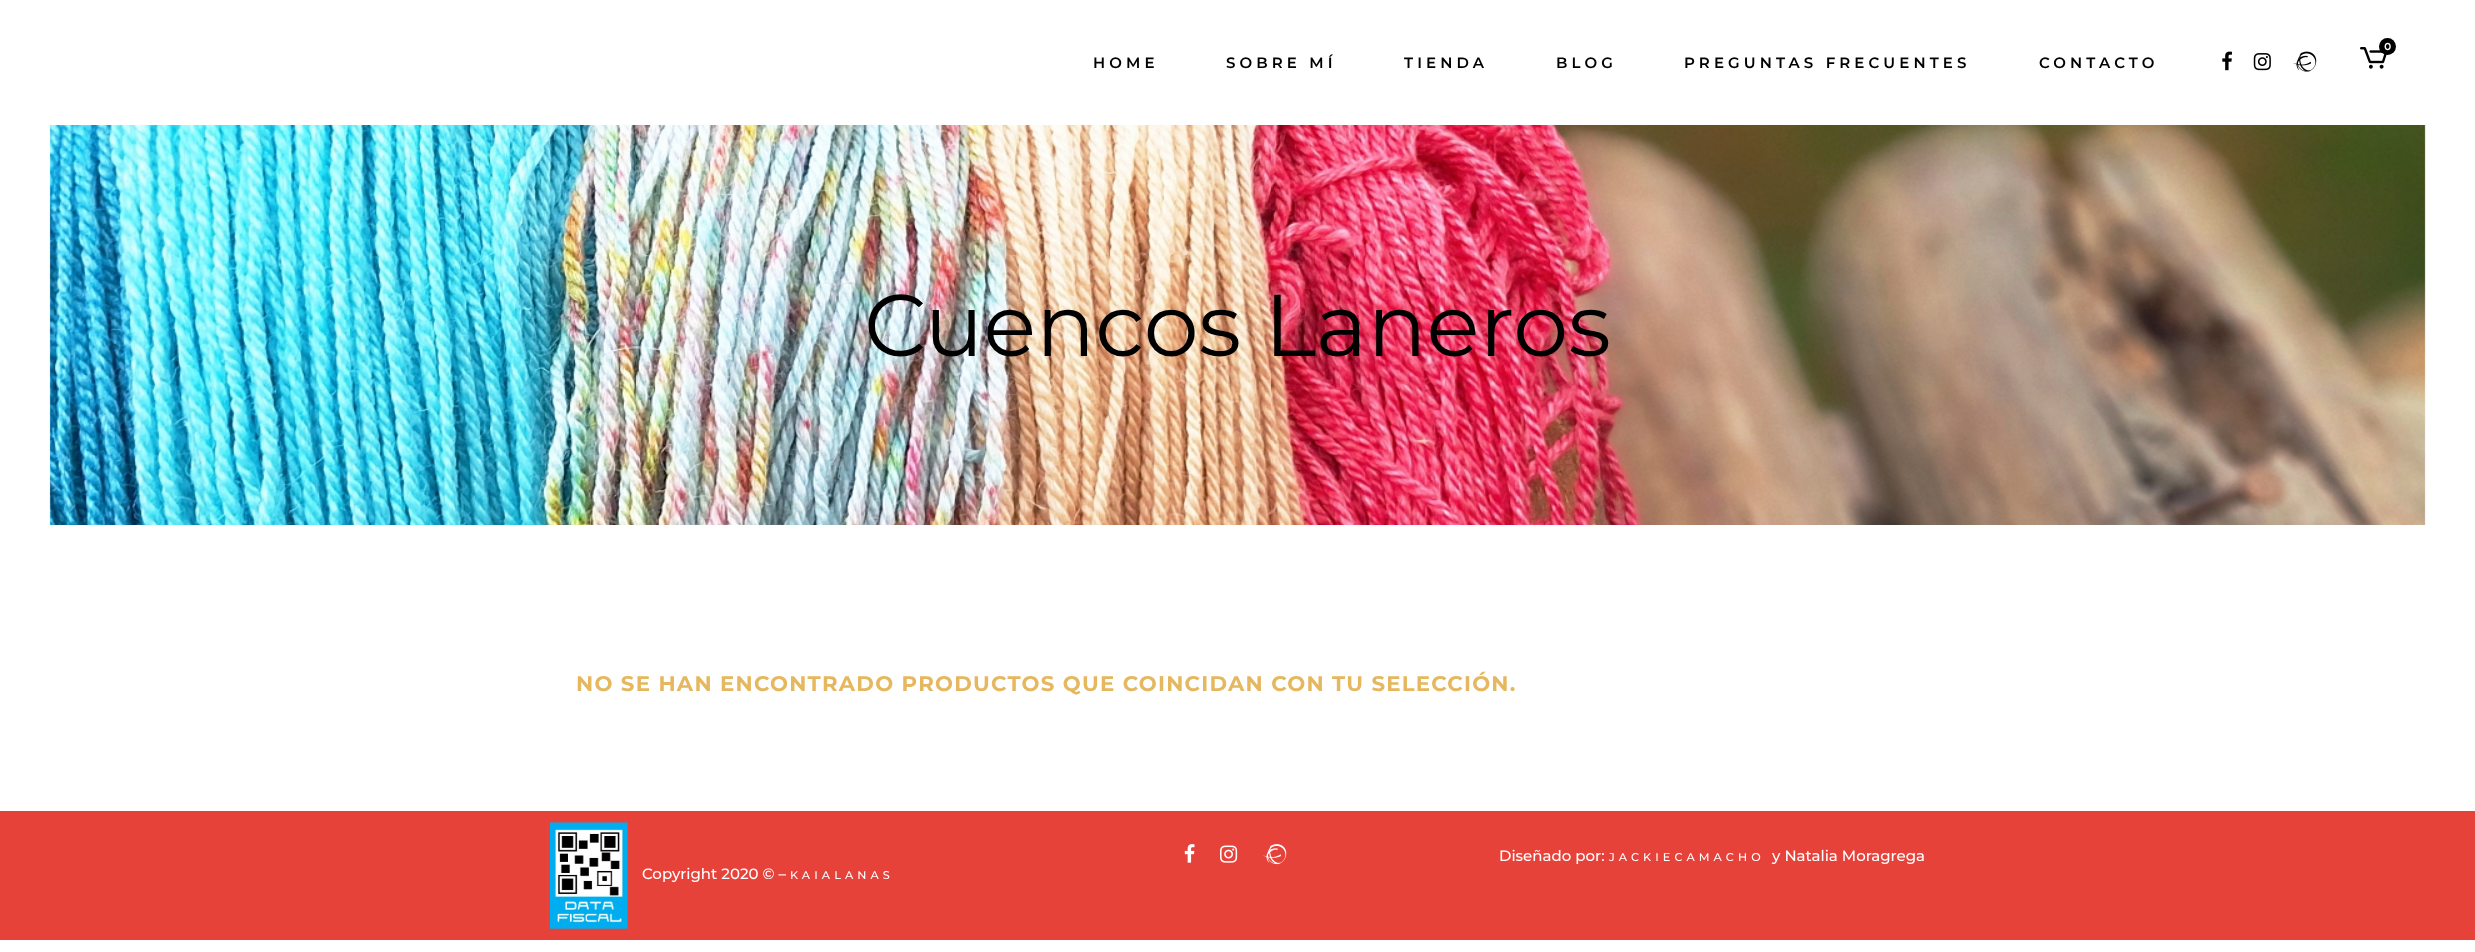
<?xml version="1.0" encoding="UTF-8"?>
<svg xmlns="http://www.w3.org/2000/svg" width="2475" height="952">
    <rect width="100%" height="100%" fill="#FFFFFF"/>
    <image x="2360" y="47" width="27" height="22" href="img_01.png"/>
    <circle cx="2387.5" cy="46.5" r="8.5" fill="#000000"/>
    <text x="2384" y="50" font-family="Raleway" font-size="12" font-weight="600" fill="#FFFFFF">0</text>
    <image x="2222" y="51" width="10" height="20" href="img_02.png"/>
    <image x="2253" y="53" width="18" height="18" href="img_03.png"/>
    <image x="2293" y="51" width="24" height="21" href="img_04.png"/>
    <text x="1093" y="68" font-family="Montserrat" font-size="15" font-weight="600" letter-spacing="4.1" fill="#000000">HOME</text>
    <text x="1226" y="68" font-family="Montserrat" font-size="15" font-weight="600" letter-spacing="4.1" fill="#000000">SOBRE MÍ</text>
    <text x="1404" y="68" font-family="Montserrat" font-size="15" font-weight="600" letter-spacing="4.1" fill="#000000">TIENDA</text>
    <text x="1556" y="68" font-family="Montserrat" font-size="15" font-weight="600" letter-spacing="4.1" fill="#000000">BLOG</text>
    <text x="1684" y="68" font-family="Montserrat" font-size="15" font-weight="600" letter-spacing="4.1" fill="#000000">PREGUNTAS FRECUENTES</text>
    <text x="2039" y="68" font-family="Montserrat" font-size="15" font-weight="600" letter-spacing="4.1" fill="#000000">CONTACTO</text>
    <image x="49" y="125" width="2377" height="400" href="img_05.png"/>
    <text x="864" y="356" font-family="Montserrat" font-size="87.5" fill="#000000">Cuencos Laneros</text>
    <text x="576" y="691" font-family="Montserrat" font-size="21.25" font-weight="700" letter-spacing="1.25" fill="#E5B75E">NO SE HAN ENCONTRADO PRODUCTOS QUE COINCIDAN CON TU SELECCIÓN.</text>
    <rect x="0" y="811" width="2475" height="129" fill="#E7423A"/>
    <image x="1184" y="844" width="11" height="19" href="img_06.png"/>
    <image x="1220" y="845" width="18" height="18" href="img_07.png"/>
    <image x="1263" y="844" width="24" height="21" href="img_08.png"/>
    <text x="1499" y="861" font-family="Montserrat" font-size="15" font-weight="500" fill="#FFFFFF">Diseñado por:</text>
    <text x="1609" y="861" font-family="Montserrat" font-size="11.25" font-weight="500" letter-spacing="4.1" fill="#FFFFFF">JACKIECAMACHO</text>
    <text x="1772" y="861" font-family="Montserrat" font-size="15" font-weight="500" fill="#FFFFFF">y Natalia Moragrega</text>
    <image x="550" y="822" width="78" height="107" href="img_09.png"/>
    <text x="642" y="879" font-family="Montserrat" font-size="15" font-weight="500" fill="#FFFFFF">Copyright 2020 © –</text>
    <text x="790" y="879" font-family="Montserrat" font-size="11.25" font-weight="500" letter-spacing="4.1" fill="#FFFFFF">KAIALANAS</text>
</svg>
